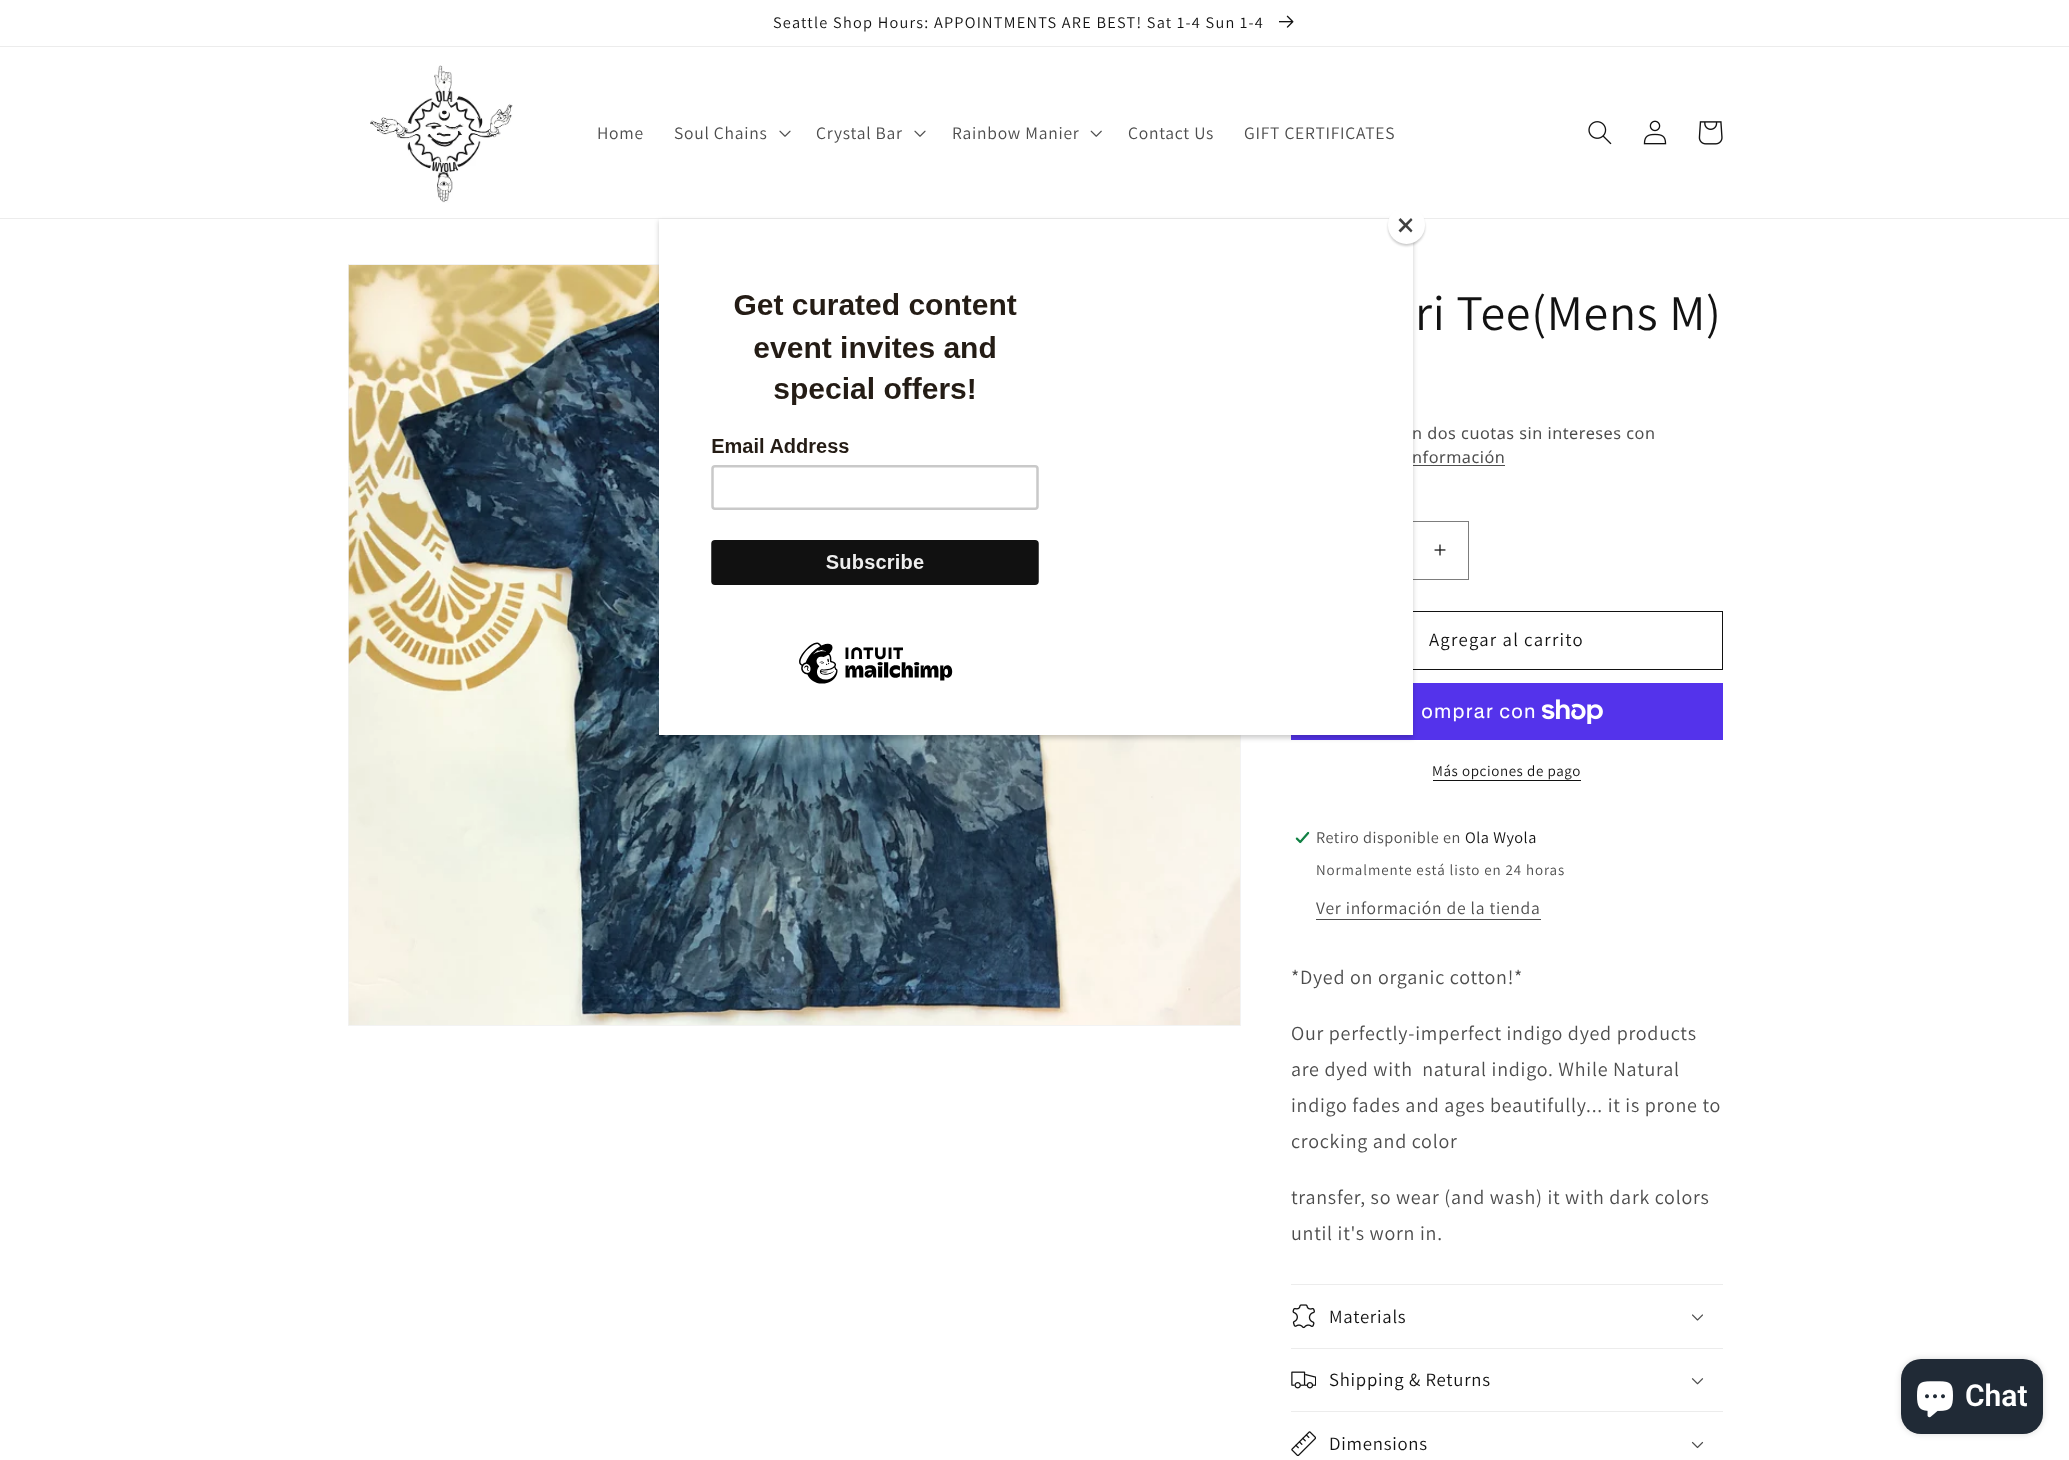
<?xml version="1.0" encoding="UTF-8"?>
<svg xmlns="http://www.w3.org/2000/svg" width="2069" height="1460">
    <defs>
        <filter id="blur1" x="-50%" y="-200%" width="200%" height="500%"><feGaussianBlur stdDeviation="2.5"/></filter>
        <filter id="blur2" x="-50%" y="-200%" width="200%" height="500%"><feGaussianBlur stdDeviation="1"/></filter>
        <filter id="blur3" x="-50%" y="-200%" width="200%" height="500%"><feGaussianBlur stdDeviation="3"/></filter>
    </defs>
    <rect width="100%" height="100%" fill="#FFFFFF"/>
    <rect x="0" y="46" width="2069" height="1" fill="#ECECEC"/>
    <text x="773" y="28" font-family="Assistant" font-size="16.25" letter-spacing="1.25" fill="#121212">Seattle Shop Hours: APPOINTMENTS ARE BEST! Sat 1-4 Sun 1-4</text>
    <image x="1279" y="15" width="15" height="13" href="img_01.png"/>
    <rect x="0" y="218" width="2069" height="1" fill="#ECECEC"/>
    <image x="370" y="65" width="143" height="138" href="img_02.png"/>
    <text x="597" y="139" font-family="Assistant" font-size="17.5" letter-spacing="0.75" fill="#4D4D4D">Home</text>
    <text x="674" y="139" font-family="Assistant" font-size="17.5" letter-spacing="0.75" fill="#4D4D4D">Soul Chains</text>
    <image x="779" y="130" width="12" height="7" href="img_03.png"/>
    <text x="816" y="139" font-family="Assistant" font-size="17.5" letter-spacing="0.75" fill="#4D4D4D">Crystal Bar</text>
    <image x="914" y="130" width="12" height="7" href="img_03.png"/>
    <text x="952" y="139" font-family="Assistant" font-size="17.5" letter-spacing="0.75" fill="#4D4D4D">Rainbow Manier</text>
    <image x="1090" y="130" width="12" height="7" href="img_04.png"/>
    <text x="1128" y="139" font-family="Assistant" font-size="17.5" letter-spacing="0.75" fill="#4D4D4D">Contact Us</text>
    <text x="1244" y="139" font-family="Assistant" font-size="17.5" letter-spacing="0.75" fill="#4D4D4D">GIFT CERTIFICATES</text>
    <image x="1588" y="121" width="24" height="24" href="img_05.png"/>
    <image x="1643" y="120" width="24" height="25" href="img_06.png"/>
    <image x="1698" y="121" width="25" height="24" href="img_07.png"/>
    <rect x="348.5" y="264.5" width="892" height="761" fill="none" stroke="#F3F3F3"/>
    <image x="348" y="265" width="892" height="760" href="img_09.png"/>
    <rect x="1413" y="465" width="92" height="1" fill="#4D4D4D"/>
    <image x="1434" y="544" width="12" height="12" href="img_10.png"/>
    <rect x="1291.5" y="521.5" width="177" height="58" fill="none" stroke="#7D7D7D"/>
    <rect x="1291.5" y="611.5" width="431" height="58" fill="none" stroke="#121212"/>
    <rect x="1291" y="683" width="432" height="57" fill="#5433EB"/>
    <rect x="659" y="221" width="754" height="517" fill="#000000" fill-opacity="0.2" filter="url(#blur1)"/>
    <image x="659" y="219" width="754" height="516" href="img_08.png"/>
    <rect x="1388" y="209" width="37" height="37" rx="18.5" fill="#000000" fill-opacity="0.2" filter="url(#blur2)"/>
    <rect x="1388" y="206" width="37" height="38" rx="18.5" fill="#FFFFFF"/>
    <path d="M 1411 218 L 1412.5 220 L 1400.5 232.5 L 1398.5 230.5 Z" fill="#414141"/>
    <path d="M 1398.5 220 L 1400.5 218 L 1412.5 230.5 L 1411 232.5 Z" fill="#414141"/>
    <text x="1415" y="330" font-family="Assistant" font-size="50" letter-spacing="0.75" fill="#121212">ri Tee(Mens M)</text>
    <text font-family="Noto Sans" font-size="16.25" letter-spacing="0.5" fill="#4D4D4D">
        <tspan x="1412" y="439">n dos cuotas sin intereses con</tspan>
        <tspan x="1412" y="463">nformación</tspan>
    </text>
    <text x="1429" y="646" font-family="Assistant" font-size="18.75" letter-spacing="1.25" fill="#121212">Agregar al carrito</text>
    <text x="1421" y="718" font-family="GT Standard" font-size="20" letter-spacing="0.75" fill="#FFFFFF">omprar con</text>
    <image x="1541" y="699" width="62" height="25" href="img_11.png"/>
    <text x="1432" y="776" font-family="Assistant" font-size="15" letter-spacing="0.6" fill="#121212">Más opciones de pago</text>
    <rect x="1433" y="780" width="148" height="1" fill="#121212"/>
    <image x="1295" y="831" width="15" height="13" href="img_12.png"/>
    <text x="1316" y="843" font-family="Assistant" font-size="16.25" letter-spacing="0.5" fill="#4D4D4D">Retiro disponible en</text>
    <text x="1465" y="843" font-family="Assistant" font-size="16.25" letter-spacing="0.5" fill="#121212">Ola Wyola</text>
    <text x="1316" y="875" font-family="Assistant" font-size="15" letter-spacing="0.9" fill="#4D4D4D">Normalmente está listo en 24 horas</text>
    <text x="1316" y="914" font-family="Assistant" font-size="17.5" letter-spacing="0.75" fill="#4D4D4D">Ver información de la tienda</text>
    <rect x="1316" y="919" width="225" height="1" fill="#4D4D4D"/>
    <text x="1291" y="984" font-family="Assistant" font-size="20" letter-spacing="0.75" fill="#4D4D4D">*Dyed on organic cotton!*</text>
    <text font-family="Assistant" font-size="20" letter-spacing="0.75" fill="#4D4D4D" xml:space="preserve"><tspan x="1291" y="1040">Our perfectly-imperfect indigo dyed products</tspan><tspan x="1291" y="1076">are dyed with  natural indigo. While Natural</tspan><tspan x="1291" y="1112">indigo fades and ages beautifully... it is prone to</tspan><tspan x="1291" y="1148">crocking and color</tspan></text>
    <text font-family="Assistant" font-size="20" letter-spacing="0.75" fill="#4D4D4D">
        <tspan x="1291" y="1204">transfer, so wear (and wash) it with dark colors</tspan>
        <tspan x="1291" y="1240">until it's worn in.</tspan>
    </text>
    <rect x="1291" y="1284" width="432" height="1" fill="#ECECEC"/>
    <rect x="1291" y="1348" width="432" height="1" fill="#ECECEC"/>
    <image x="1292" y="1304" width="23" height="25" href="img_13.png"/>
    <text x="1329" y="1323" font-family="Assistant" font-size="18.75" letter-spacing="0.75" fill="#121212">Materials</text>
    <image x="1692" y="1314" width="11" height="7" href="img_14.png"/>
    <rect x="1291" y="1411" width="432" height="1" fill="#ECECEC"/>
    <image x="1291" y="1371" width="25" height="18" href="img_15.png"/>
    <text x="1329" y="1386" font-family="Assistant" font-size="18.75" letter-spacing="0.75" fill="#121212">Shipping &amp; Returns</text>
    <image x="1691" y="1378" width="13" height="7" href="img_16.png"/>
    <image x="1291" y="1431" width="25" height="25" href="img_17.png"/>
    <text x="1329" y="1450" font-family="Assistant" font-size="18.75" letter-spacing="0.75" fill="#121212">Dimensions</text>
    <image x="1691" y="1441" width="13" height="8" href="img_18.png"/>
    <rect x="1901" y="1359" width="142" height="75" rx="20" fill="#000000" fill-opacity="0.15" filter="url(#blur3)"/>
    <rect x="1901" y="1359" width="142" height="75" rx="20" fill="#202A36"/>
    <image x="1917" y="1381" width="36" height="37" href="img_19.png"/>
    <text x="1965" y="1406" font-family="Roboto" font-size="30" font-weight="600" fill="#FFFFFF">Chat</text>
</svg>
